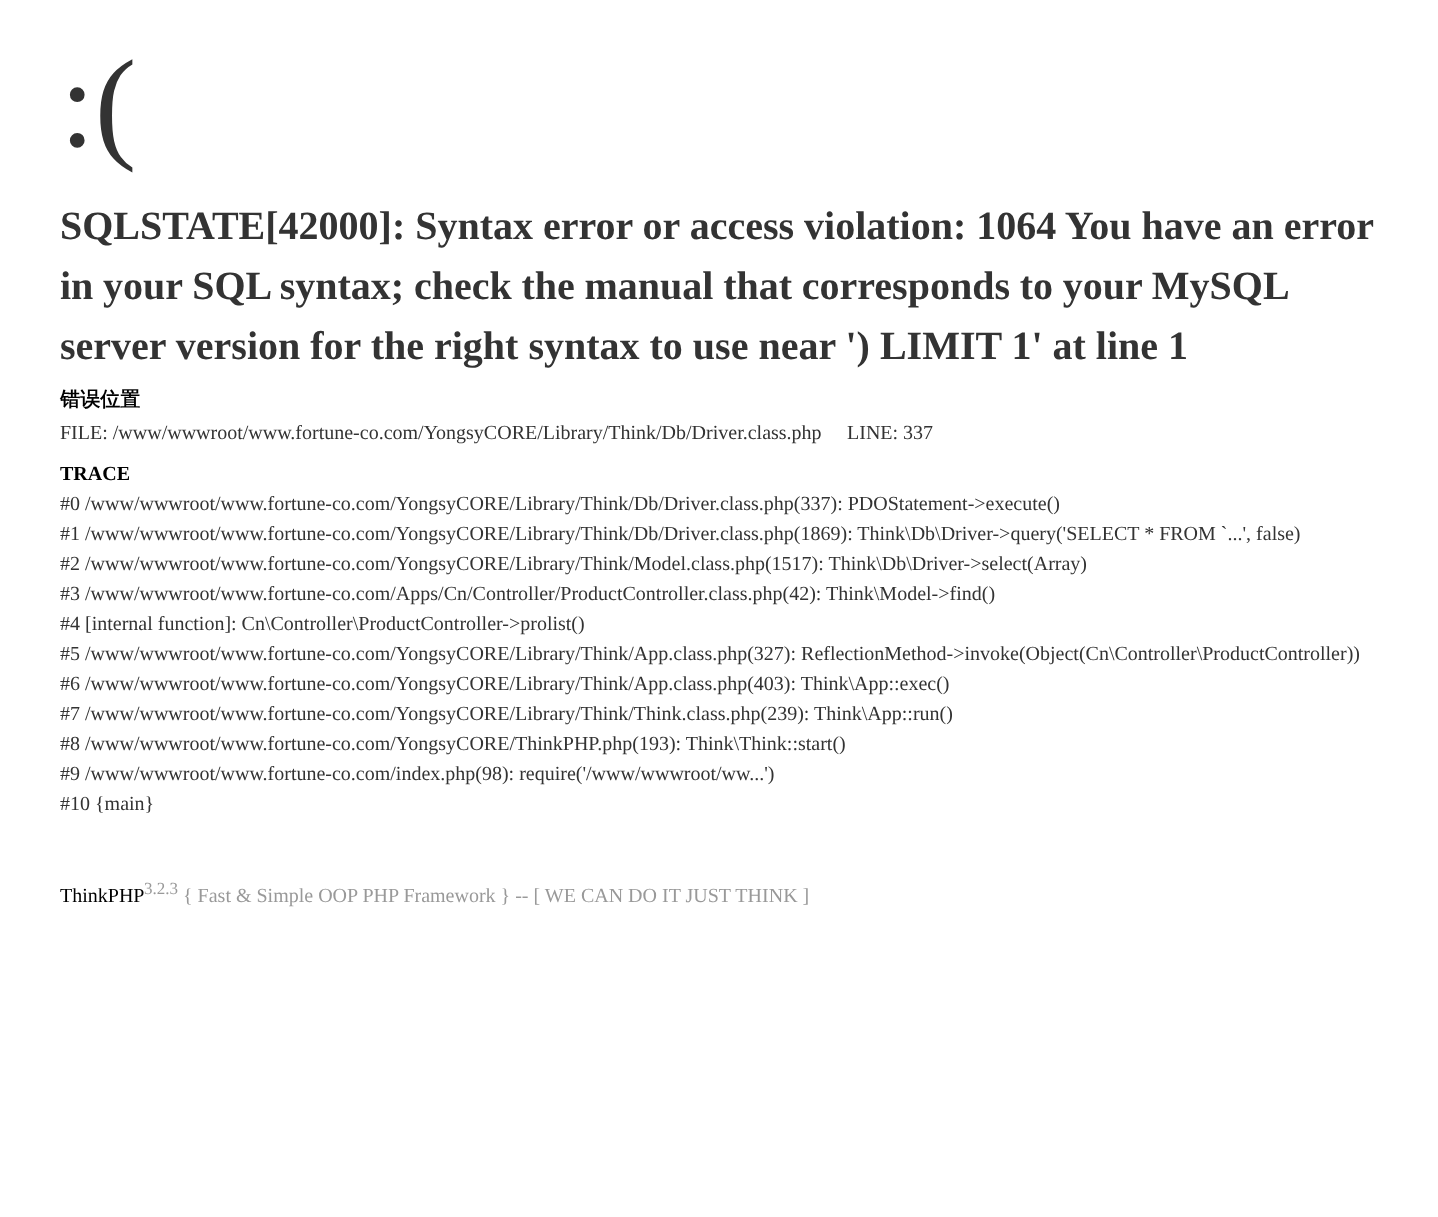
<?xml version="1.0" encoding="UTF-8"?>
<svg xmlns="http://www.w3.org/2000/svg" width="1438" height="1217">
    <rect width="100%" height="100%" fill="#FFFFFF"/>
    <text x="60" y="146" font-family="Liberation Serif" font-size="125" fill="#333333">:(</text>
    <text font-family="Liberation Serif" font-size="40" font-weight="700" fill="#333333">
        <tspan x="60" y="239">SQLSTATE[42000]: Syntax error or access violation: 1064 You have an error</tspan>
        <tspan x="60" y="299" word-spacing="-0.25">in your SQL syntax; check the manual that corresponds to your MySQL</tspan>
        <tspan x="60" y="359">server version for the right syntax to use near ') LIMIT 1' at line 1</tspan>
    </text>
    <text x="60" y="406" font-family="WenQuanYi Zen Hei" font-size="20" font-weight="700" fill="#000000">错误位置</text>
    <text x="60" y="439" font-family="Liberation Serif" font-size="20" fill="#333333">FILE: /www/wwwroot/www.fortune-co.com/YongsyCORE/Library/Think/Db/Driver.class.php</text>
    <text x="847" y="439" font-family="Liberation Serif" font-size="20" fill="#333333">LINE: 337</text>
    <text x="60" y="480" font-family="Liberation Serif" font-size="20" font-weight="700" fill="#000000">TRACE</text>
    <text font-family="Liberation Serif" font-size="20" fill="#333333">
        <tspan x="60" y="510">#0 /www/wwwroot/www.fortune-co.com/YongsyCORE/Library/Think/Db/Driver.class.php(337): PDOStatement-&gt;execute()</tspan>
        <tspan x="60" y="540">#1 /www/wwwroot/www.fortune-co.com/YongsyCORE/Library/Think/Db/Driver.class.php(1869): Think\Db\Driver-&gt;query('SELECT * FROM `...', false)</tspan>
        <tspan x="60" y="570">#2 /www/wwwroot/www.fortune-co.com/YongsyCORE/Library/Think/Model.class.php(1517): Think\Db\Driver-&gt;select(Array)</tspan>
        <tspan x="60" y="600">#3 /www/wwwroot/www.fortune-co.com/Apps/Cn/Controller/ProductController.class.php(42): Think\Model-&gt;find()</tspan>
        <tspan x="60" y="630">#4 [internal function]: Cn\Controller\ProductController-&gt;prolist()</tspan>
        <tspan x="60" y="660">#5 /www/wwwroot/www.fortune-co.com/YongsyCORE/Library/Think/App.class.php(327): ReflectionMethod-&gt;invoke(Object(Cn\Controller\ProductController))</tspan>
        <tspan x="60" y="690">#6 /www/wwwroot/www.fortune-co.com/YongsyCORE/Library/Think/App.class.php(403): Think\App::exec()</tspan>
        <tspan x="60" y="720">#7 /www/wwwroot/www.fortune-co.com/YongsyCORE/Library/Think/Think.class.php(239): Think\App::run()</tspan>
        <tspan x="60" y="750">#8 /www/wwwroot/www.fortune-co.com/YongsyCORE/ThinkPHP.php(193): Think\Think::start()</tspan>
        <tspan x="60" y="780">#9 /www/wwwroot/www.fortune-co.com/index.php(98): require('/www/wwwroot/ww...')</tspan>
        <tspan x="60" y="810">#10 {main}</tspan>
    </text>
    <text x="60" y="902" font-family="Liberation Serif" font-size="20" fill="#000000">ThinkPHP</text>
    <text x="144" y="894" font-family="Liberation Serif" font-size="17" fill="#999999">3.2.3</text>
    <text x="183" y="902" font-family="Liberation Serif" font-size="20" fill="#999999">{ Fast &amp; Simple OOP PHP Framework } -- [ WE CAN DO IT JUST THINK ]</text>
</svg>
